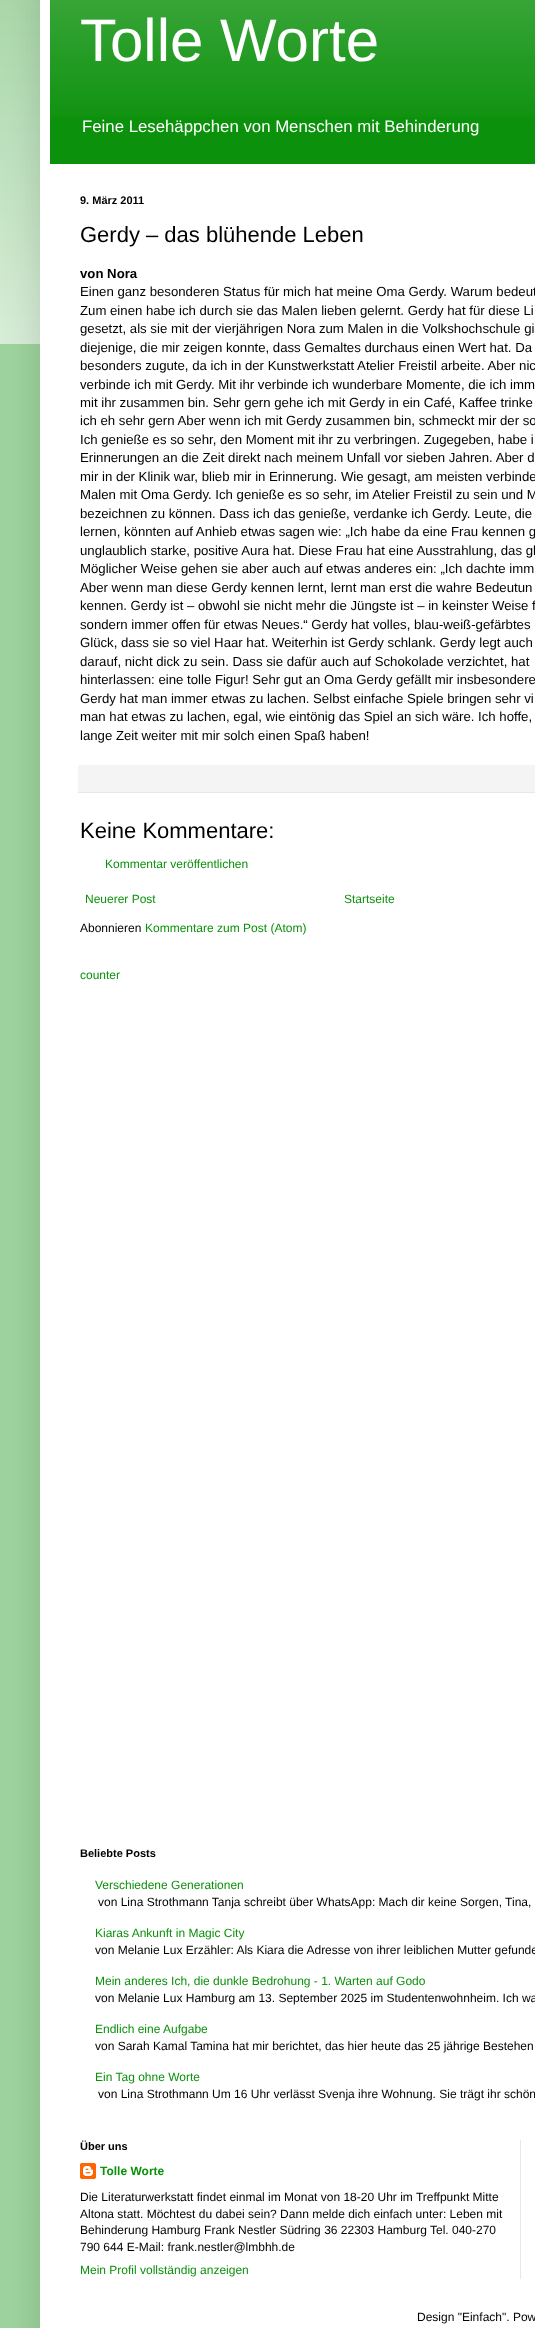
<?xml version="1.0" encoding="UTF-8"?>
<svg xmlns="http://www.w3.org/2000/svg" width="535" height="2328">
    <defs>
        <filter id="blur1" x="-50%" y="-200%" width="200%" height="500%"><feGaussianBlur stdDeviation="20"/></filter>
    </defs>
    <rect width="100%" height="100%" fill="#9ED39E"/>
    <image x="0" y="0" width="40" height="344" href="img_01.png"/>
    <rect x="40" y="-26" width="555" height="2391" fill="#000000" fill-opacity="0.15" filter="url(#blur1)"/>
    <rect x="40" y="0" width="495" height="2328" fill="#FFFFFF"/>
    <rect x="50" y="0" width="485" height="164" fill="#0C910C"/>
    <image x="50" y="0" width="485" height="117" href="img_02.png"/>
    <text x="80" y="61" font-family="Liberation Sans" font-size="60" fill="#FFFFFF">Tolle Worte</text>
    <text x="82" y="132" font-family="Liberation Sans" font-size="16.8" fill="#FFFFFF">Feine Lesehäppchen von Menschen mit Behinderung</text>
    <text x="80" y="204" font-family="Liberation Sans" font-size="11" font-weight="700" fill="#000000">9. März 2011</text>
    <text x="80" y="242" font-family="Liberation Sans" font-size="22" fill="#000000">Gerdy – das blühende Leben</text>
    <text x="80" y="278" font-family="Liberation Sans" font-size="13.2" font-weight="700" fill="#000000">von Nora</text>
    <text font-family="Liberation Sans" font-size="13.2" fill="#000000">
        <tspan x="80" y="296">Einen ganz besonderen Status für mich hat meine Oma Gerdy. Warum bedeut</tspan>
        <tspan x="80" y="315">Zum einen habe ich durch sie das Malen lieben gelernt. Gerdy hat für diese Li</tspan>
        <tspan x="80" y="333">gesetzt, als sie mit der vierjährigen Nora zum Malen in die Volkshochschule gi</tspan>
        <tspan x="80" y="352">diejenige, die mir zeigen konnte, dass Gemaltes durchaus einen Wert hat. Da</tspan>
        <tspan x="80" y="370">besonders zugute, da ich in der Kunstwerkstatt Atelier Freistil arbeite. Aber nic</tspan>
        <tspan x="80" y="389">verbinde ich mit Gerdy. Mit ihr verbinde ich wunderbare Momente, die ich imm</tspan>
        <tspan x="80" y="407">mit ihr zusammen bin. Sehr gern gehe ich mit Gerdy in ein Café, Kaffee trinke</tspan>
        <tspan x="80" y="425">ich eh sehr gern Aber wenn ich mit Gerdy zusammen bin, schmeckt mir der so</tspan>
        <tspan x="80" y="444">Ich genieße es so sehr, den Moment mit ihr zu verbringen. Zugegeben, habe i</tspan>
        <tspan x="80" y="462">Erinnerungen an die Zeit direkt nach meinem Unfall vor sieben Jahren. Aber d</tspan>
        <tspan x="80" y="481">mir in der Klinik war, blieb mir in Erinnerung. Wie gesagt, am meisten verbinde</tspan>
        <tspan x="80" y="499">Malen mit Oma Gerdy. Ich genieße es so sehr, im Atelier Freistil zu sein und M</tspan>
        <tspan x="80" y="518">bezeichnen zu können. Dass ich das genieße, verdanke ich Gerdy. Leute, die</tspan>
        <tspan x="80" y="536">lernen, könnten auf Anhieb etwas sagen wie: „Ich habe da eine Frau kennen g</tspan>
        <tspan x="80" y="555">unglaublich starke, positive Aura hat. Diese Frau hat eine Ausstrahlung, das gl</tspan>
        <tspan x="80" y="573">Möglicher Weise gehen sie aber auch auf etwas anderes ein: „Ich dachte imm</tspan>
        <tspan x="80" y="592">Aber wenn man diese Gerdy kennen lernt, lernt man erst die wahre Bedeutun</tspan>
        <tspan x="80" y="610">kennen. Gerdy ist – obwohl sie nicht mehr die Jüngste ist – in keinster Weise f</tspan>
        <tspan x="80" y="629">sondern immer offen für etwas Neues.“ Gerdy hat volles, blau-weiß-gefärbtes</tspan>
        <tspan x="80" y="647">Glück, dass sie so viel Haar hat. Weiterhin ist Gerdy schlank. Gerdy legt auch</tspan>
        <tspan x="80" y="666">darauf, nicht dick zu sein. Dass sie dafür auch auf Schokolade verzichtet, hat</tspan>
        <tspan x="80" y="684">hinterlassen: eine tolle Figur! Sehr gut an Oma Gerdy gefällt mir insbesondere</tspan>
        <tspan x="80" y="703">Gerdy hat man immer etwas zu lachen. Selbst einfache Spiele bringen sehr vi</tspan>
        <tspan x="80" y="721">man hat etwas zu lachen, egal, wie eintönig das Spiel an sich wäre. Ich hoffe,</tspan>
        <tspan x="80" y="740">lange Zeit weiter mit mir solch einen Spaß haben!</tspan>
    </text>
    <rect x="78" y="765" width="457" height="27" fill="#F4F4F4"/>
    <rect x="78" y="792" width="457" height="1" fill="#E8E8E8"/>
    <text x="80" y="838" font-family="Liberation Sans" font-size="22" fill="#000000">Keine Kommentare:</text>
    <text x="105" y="868" font-family="Liberation Sans" font-size="12" fill="#0C910C">Kommentar veröffentlichen</text>
    <text x="85" y="903" font-family="Liberation Sans" font-size="12" fill="#0C910C">Neuerer Post</text>
    <text x="344" y="903" font-family="Liberation Sans" font-size="12" fill="#0C910C">Startseite</text>
    <text x="80" y="932" font-family="Liberation Sans" font-size="12" fill="#000000">Abonnieren</text>
    <text x="145" y="932" font-family="Liberation Sans" font-size="12" fill="#0C910C">Kommentare zum Post (Atom)</text>
    <text x="80" y="979" font-family="Liberation Sans" font-size="12" fill="#0C910C">counter</text>
    <text x="80" y="1857" font-family="Liberation Sans" font-size="11" font-weight="700" fill="#000000">Beliebte Posts</text>
    <text x="95" y="1889" font-family="Liberation Sans" font-size="12" fill="#0C910C">Verschiedene Generationen</text>
    <text x="98" y="1906" font-family="Liberation Sans" font-size="12" fill="#000000">von Lina Strothmann Tanja schreibt über WhatsApp: Mach dir keine Sorgen, Tina,</text>
    <text x="95" y="1937" font-family="Liberation Sans" font-size="12" fill="#0C910C">Kiaras Ankunft in Magic City</text>
    <text x="95" y="1954" font-family="Liberation Sans" font-size="12" fill="#000000">von Melanie Lux Erzähler: Als Kiara die Adresse von ihrer leiblichen Mutter gefunde</text>
    <text x="95" y="1985" font-family="Liberation Sans" font-size="12" fill="#0C910C">Mein anderes Ich, die dunkle Bedrohung - 1. Warten auf Godo</text>
    <text x="95" y="2002" font-family="Liberation Sans" font-size="12" fill="#000000">von Melanie Lux Hamburg am 13. September 2025 im Studentenwohnheim. Ich wa</text>
    <text x="95" y="2033" font-family="Liberation Sans" font-size="12" fill="#0C910C">Endlich eine Aufgabe</text>
    <text x="95" y="2050" font-family="Liberation Sans" font-size="12" fill="#000000">von Sarah Kamal Tamina hat mir berichtet, das hier heute das 25 jährige Bestehen</text>
    <text x="95" y="2081" font-family="Liberation Sans" font-size="12" fill="#0C910C">Ein Tag ohne Worte</text>
    <text x="98" y="2098" font-family="Liberation Sans" font-size="12" fill="#000000">von Lina Strothmann Um 16 Uhr verlässt Svenja ihre Wohnung. Sie trägt ihr schön</text>
    <text x="80" y="2150" font-family="Liberation Sans" font-size="11" font-weight="700" fill="#000000">Über uns</text>
    <image x="80" y="2163" width="16" height="16" href="img_03.png"/>
    <text x="100" y="2175" font-family="Liberation Sans" font-size="12" font-weight="700" fill="#0C910C">Tolle Worte</text>
    <text font-family="Liberation Sans" font-size="12" fill="#000000">
        <tspan x="80" y="2201">Die Literaturwerkstatt findet einmal im Monat von 18-20 Uhr im Treffpunkt Mitte</tspan>
        <tspan x="80" y="2218">Altona statt. Möchtest du dabei sein? Dann melde dich einfach unter: Leben mit</tspan>
        <tspan x="80" y="2234">Behinderung Hamburg Frank Nestler Südring 36 22303 Hamburg Tel. 040-270</tspan>
        <tspan x="80" y="2251">790 644 E-Mail: frank.nestler@lmbhh.de</tspan>
    </text>
    <text x="80" y="2274" font-family="Liberation Sans" font-size="12" fill="#0C910C">Mein Profil vollständig anzeigen</text>
    <rect x="520" y="2140" width="1" height="139" fill="#E8E8E8"/>
    <text x="417" y="2321" font-family="Liberation Sans" font-size="12" fill="#000000">Design "Einfach". Pow</text>
</svg>
